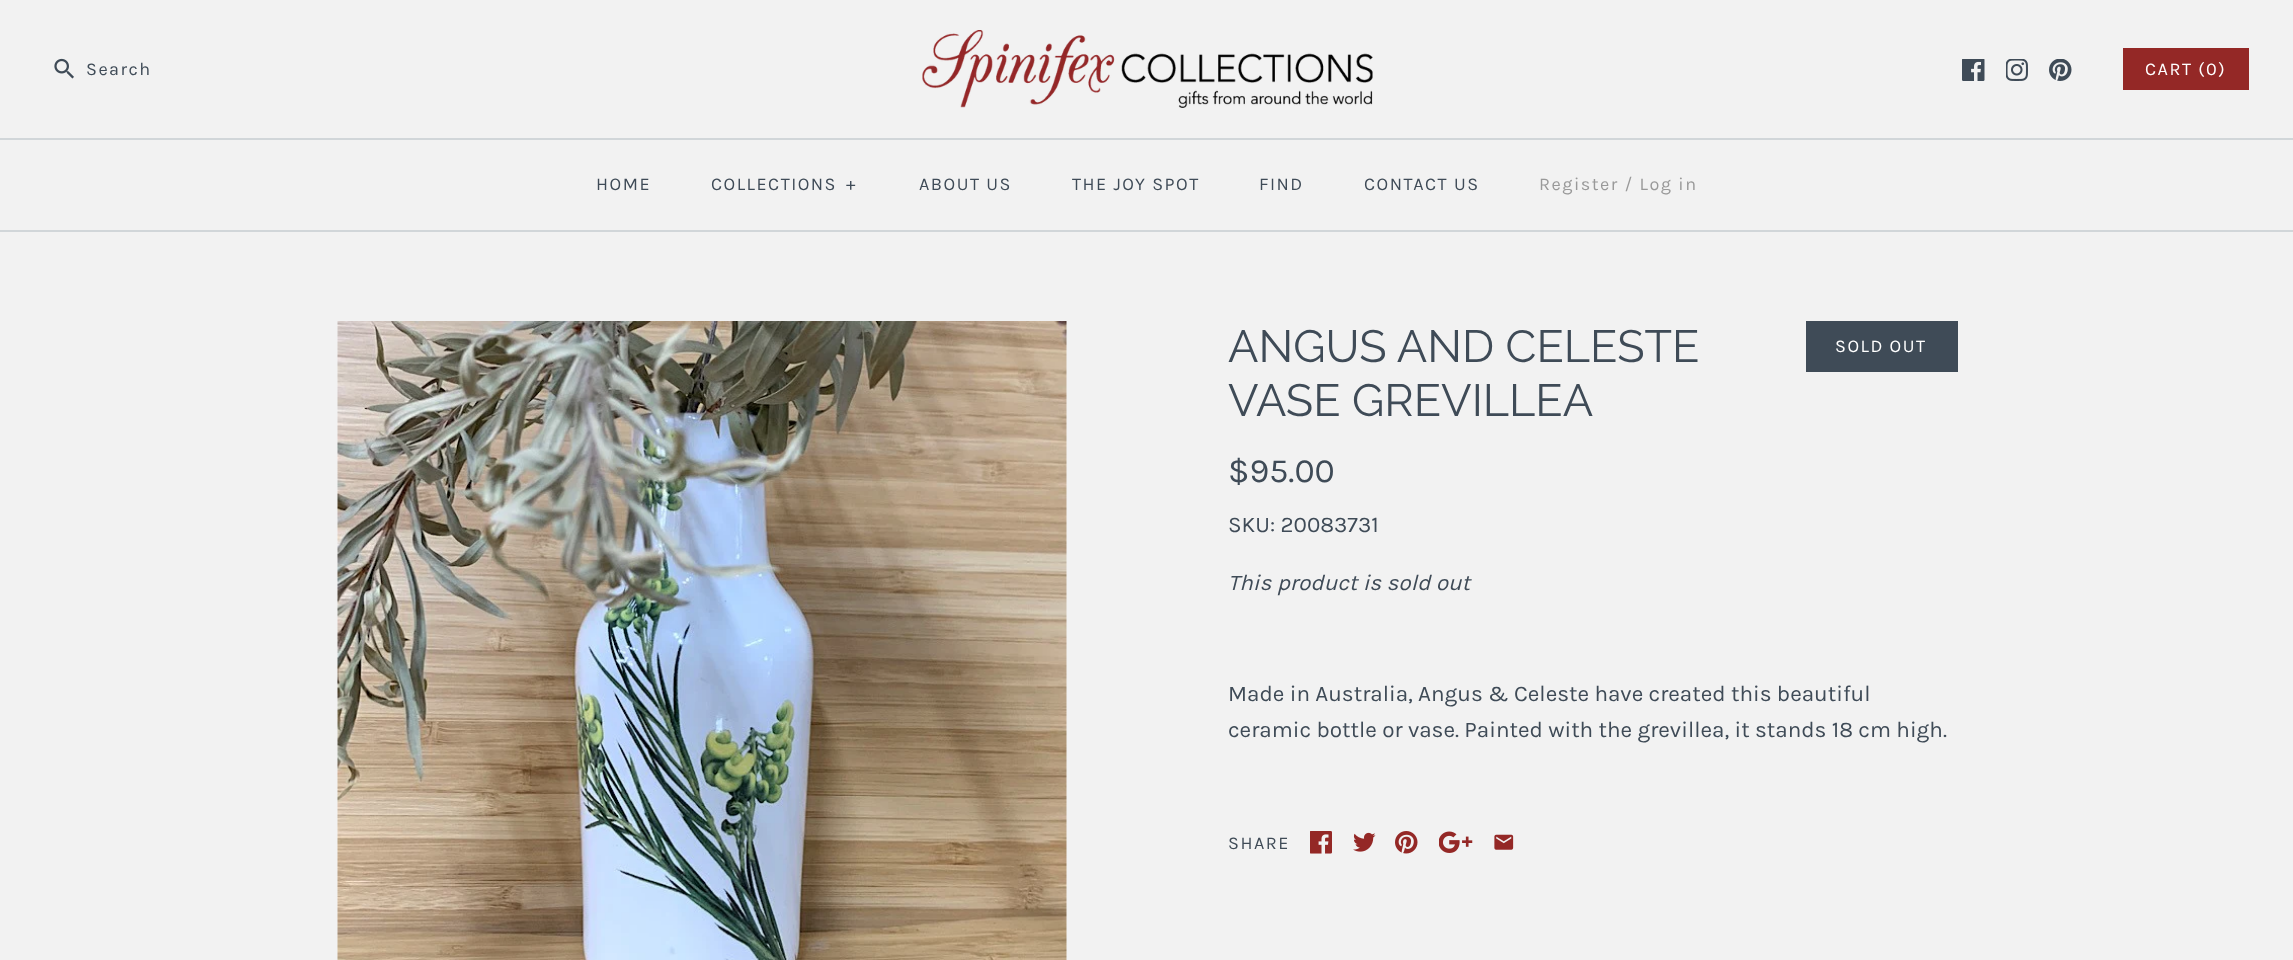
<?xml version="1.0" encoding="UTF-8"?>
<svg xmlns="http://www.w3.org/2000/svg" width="2293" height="960">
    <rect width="100%" height="100%" fill="#F2F2F2"/>
    <image x="922" y="30" width="451" height="78" href="img_01.png"/>
    <image x="54" y="58" width="20" height="21" href="img_02.png"/>
    <text x="86" y="75" font-family="Karla" font-size="18" letter-spacing="1.5" fill="#3F4B57">Search</text>
    <image x="1962" y="59" width="23" height="22" href="img_03.png"/>
    <image x="2006" y="59" width="22" height="22" href="img_04.png"/>
    <image x="2049" y="59" width="23" height="22" href="img_05.png"/>
    <rect x="2123" y="48" width="126" height="42" fill="#942826"/>
    <text x="2145" y="75" font-family="Karla" font-size="18" letter-spacing="1.5" fill="#FFFFFF">CART (0)</text>
    <rect x="0" y="230" width="2293" height="2" fill="#D1D6D9"/>
    <rect x="0" y="138" width="2293" height="2" fill="#D1D6D9"/>
    <text x="596" y="190" font-family="Karla" font-size="18" letter-spacing="1.5" fill="#3F4B57">HOME</text>
    <text x="711" y="190" font-family="Karla" font-size="18" letter-spacing="1.5" fill="#3F4B57">COLLECTIONS</text>
    <text x="846" y="190" font-family="Karla" font-size="18" letter-spacing="1.5" fill="#3F4B57">+</text>
    <text x="919" y="190" font-family="Karla" font-size="18" letter-spacing="1.5" fill="#3F4B57">ABOUT US</text>
    <text x="1072" y="190" font-family="Karla" font-size="18" letter-spacing="1.5" fill="#3F4B57">THE JOY SPOT</text>
    <text x="1259" y="190" font-family="Karla" font-size="18" letter-spacing="1.5" fill="#3F4B57">FIND</text>
    <text x="1364" y="190" font-family="Karla" font-size="18" letter-spacing="1.5" fill="#3F4B57">CONTACT US</text>
    <text x="1539" y="190" font-family="Karla" font-size="18" letter-spacing="1.5" fill="#999999">Register / Log in</text>
    <image x="337" y="321" width="730" height="639" href="img_06.png"/>
    <text font-family="Raleway" font-size="45" fill="#3F4B57">
        <tspan x="1228" y="362">ANGUS AND CELESTE</tspan>
        <tspan x="1228" y="416">VASE GREVILLEA</tspan>
    </text>
    <rect x="1806" y="321" width="152" height="51" fill="#3F4B57"/>
    <text x="1835" y="352" font-family="Karla" font-size="18" letter-spacing="1.5" fill="#FFFFFF">SOLD OUT</text>
    <text x="1228" y="482" font-family="Karla" font-size="34" fill="#3F4B57">$95.00</text>
    <text x="1228" y="532" font-family="Karla" font-size="22.5" fill="#3F4B57">SKU: 20083731</text>
    <text x="1228" y="590" font-family="Karla" font-size="22.5" font-style="italic" fill="#3F4B57">This product is sold out</text>
    <text font-family="Karla" font-size="22.5" fill="#3F4B57">
        <tspan x="1228" y="701">Made in Australia, Angus &amp; Celeste have created this beautiful</tspan>
        <tspan x="1228" y="737">ceramic bottle or vase. Painted with the grevillea, it stands 18 cm high.</tspan>
    </text>
    <text x="1228" y="849" font-family="Karla" font-size="18" letter-spacing="1.5" fill="#3F4B57">SHARE</text>
    <image x="1310" y="831" width="22" height="23" href="img_07.png"/>
    <image x="1353" y="832" width="23" height="20" href="img_08.png"/>
    <image x="1395" y="831" width="23" height="23" href="img_09.png"/>
    <image x="1439" y="831" width="34" height="22" href="img_10.png"/>
    <image x="1494" y="834" width="20" height="16" href="img_11.png"/>
</svg>
